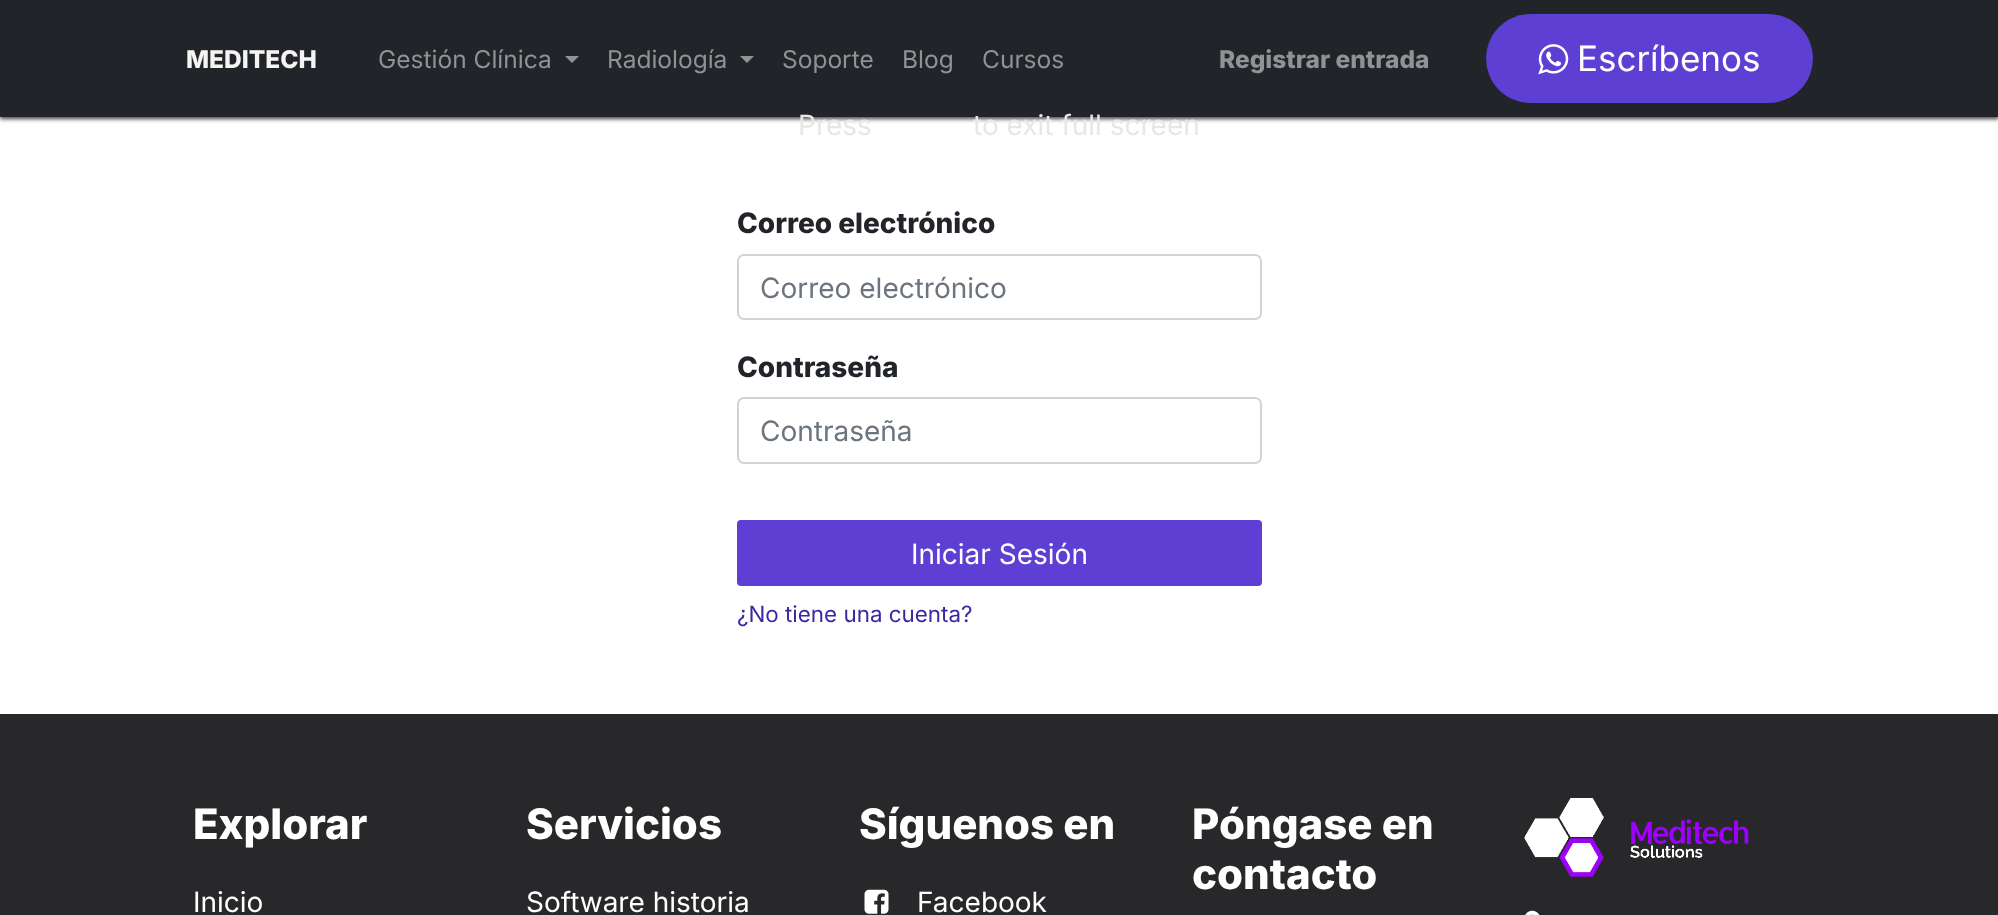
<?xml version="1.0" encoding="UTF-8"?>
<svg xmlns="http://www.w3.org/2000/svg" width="1998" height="915">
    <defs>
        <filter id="blur1" x="-50%" y="-200%" width="200%" height="500%"><feGaussianBlur stdDeviation="2"/></filter>
    </defs>
    <rect width="100%" height="100%" fill="#FFFFFF"/>
    <rect x="0" y="2" width="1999" height="117" fill="#000000" fill-opacity="0.75" filter="url(#blur1)"/>
    <rect x="0" y="0" width="1998" height="117" fill="#212529"/>
    <text x="186" y="68" font-family="Inter" font-size="24.5" font-weight="800" fill="#F6F4F2">MEDITECH</text>
    <text x="378" y="68" font-family="Inter" font-size="24.5" fill="#909294">Gestión Clínica</text>
    <path d="M 565 56 H 579 L 572 63 Z" fill="#909294"/>
    <text x="607" y="68" font-family="Inter" font-size="24.5" fill="#909294">Radiología</text>
    <path d="M 740 56 H 754 L 747 63 Z" fill="#909294"/>
    <text x="782" y="68" font-family="Inter" font-size="24.5" fill="#909294">Soporte</text>
    <text x="902" y="68" font-family="Inter" font-size="24.5" fill="#909294">Blog</text>
    <text x="982" y="68" font-family="Inter" font-size="24.5" fill="#909294">Cursos</text>
    <text x="1219" y="68" font-family="Inter" font-size="24.5" font-weight="800" fill="#909294">Registrar entrada</text>
    <rect x="1486" y="14" width="327" height="89" rx="44.5" fill="#5D3FD3"/>
    <image x="1538" y="44" width="31" height="31" href="img_01.png"/>
    <text x="1577" y="71" font-family="Inter" font-size="35" fill="#FFFFFF">Escríbenos</text>
    <text x="737" y="233" font-family="Inter" font-size="28" font-weight="800" fill="#212529">Correo electrónico</text>
    <rect x="738" y="255" width="523" height="64" rx="6" fill="none" stroke="#CED4DA" stroke-width="2"/>
    <text x="760" y="298" font-family="Inter" font-size="28" fill="#6C757D">Correo electrónico</text>
    <text x="737" y="377" font-family="Inter" font-size="28" font-weight="800" fill="#212529">Contraseña</text>
    <rect x="738" y="398" width="523" height="65" rx="6" fill="none" stroke="#CED4DA" stroke-width="2"/>
    <text x="760" y="441" font-family="Inter" font-size="28" fill="#6C757D">Contraseña</text>
    <rect x="738" y="521" width="523" height="64" rx="3" fill="#5D3FD3" stroke="#5D3FD3" stroke-width="2"/>
    <text x="911" y="564" font-family="Inter" font-size="28" fill="#FFFFFF">Iniciar Sesión</text>
    <text x="737" y="622" font-family="Inter" font-size="22.4" fill="#3E25A1">¿No tiene una cuenta?</text>
    <rect x="0" y="714" width="1998" height="201" fill="#28282B"/>
    <text x="193" y="839" font-family="Inter" font-size="42" font-weight="800" fill="#FFFFFF">Explorar</text>
    <text x="193" y="912" font-family="Inter" font-size="28" fill="#FFFFFF">Inicio</text>
    <text x="526" y="839" font-family="Inter" font-size="42" font-weight="800" fill="#FFFFFF">Servicios</text>
    <text x="526" y="912" font-family="Inter" font-size="28" fill="#FFFFFF">Software historia</text>
    <text x="859" y="839" font-family="Inter" font-size="42" font-weight="800" fill="#FFFFFF">Síguenos en</text>
    <image x="864" y="889" width="25" height="25" href="img_02.png"/>
    <text x="917" y="912" font-family="Inter" font-size="28" fill="#FFFFFF">Facebook</text>
    <text font-family="Inter" font-size="42" font-weight="800" fill="#FFFFFF">
        <tspan x="1192" y="839">Póngase en</tspan>
        <tspan x="1192" y="889">contacto</tspan>
    </text>
    <image x="1524" y="798" width="225" height="79" href="img_03.png"/>
    <image x="1525" y="910" width="15" height="5" href="img_04.png"/>
    <text x="798" y="135" font-family="Inter" font-size="28" fill="#E7E7E7">Press</text>
    <text x="973" y="135" font-family="Inter" font-size="28" fill="#E7E7E7">to exit full screen</text>
</svg>
